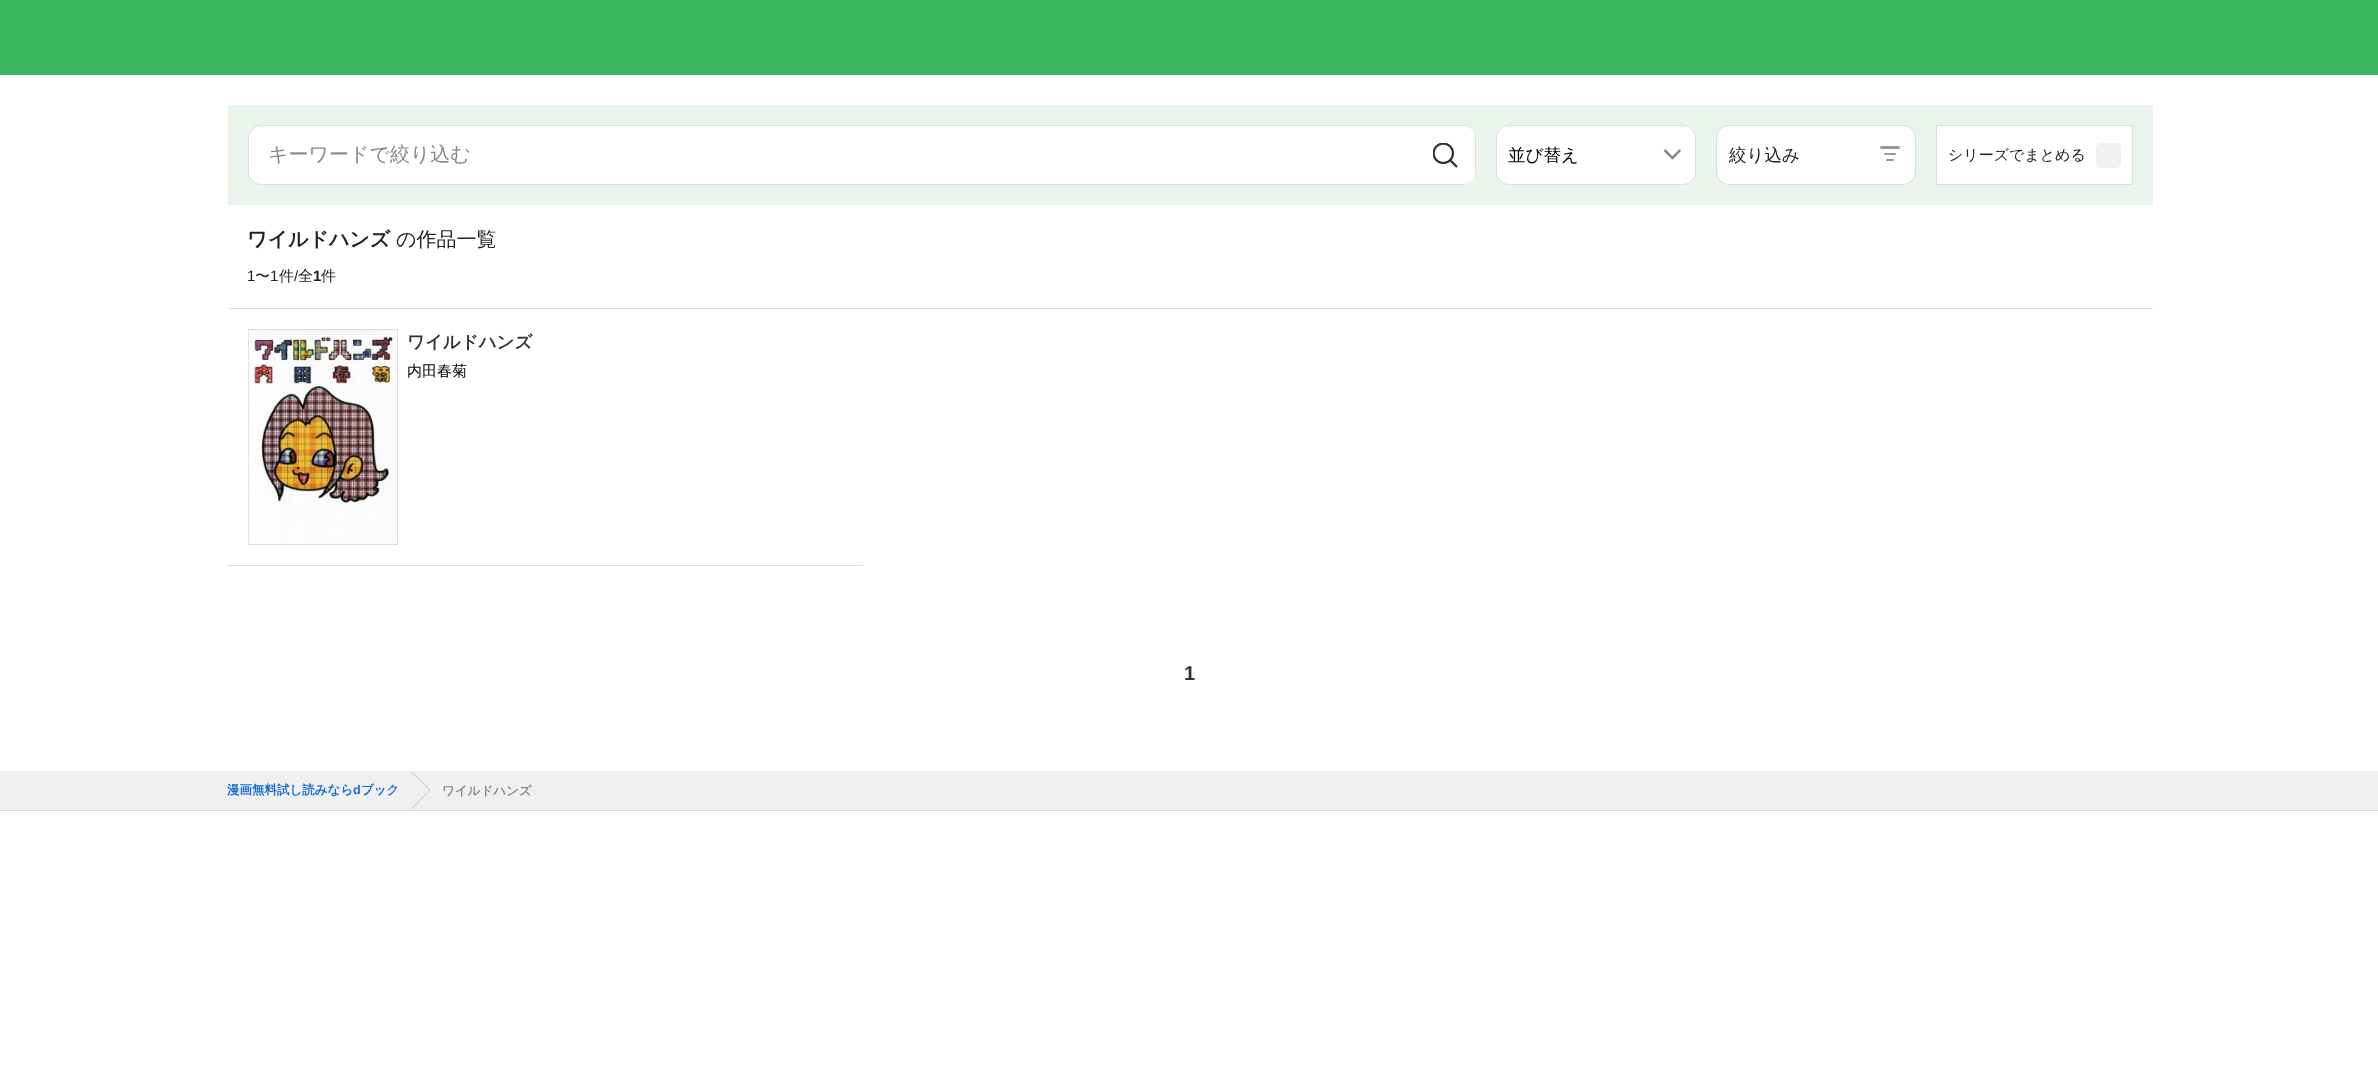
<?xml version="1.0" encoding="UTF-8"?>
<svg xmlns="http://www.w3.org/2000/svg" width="2378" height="1084">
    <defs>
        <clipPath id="clip1"><rect x="249" y="126" width="1226" height="58" rx="11"/></clipPath>
    </defs>
    <rect width="100%" height="100%" fill="#FFFFFF"/>
    <rect x="0" y="0" width="2378" height="75" fill="#3CB65E"/>
    <rect x="228" y="105" width="1925" height="100" fill="#E8F4EC"/>
    <rect x="248.5" y="125.5" width="1227" height="59" rx="12.5" fill="none" stroke="#DDDDDD"/>
    <g clip-path="url(#clip1)">
        <path d="M 262 126 H 1415 V 184 H 262 C 255 184 249 178 249 171 V 139 C 249 132 255 126 262 126 Z" fill="#FFFFFF"/>
    </g>
    <text x="268" y="161" font-family="WenQuanYi Zen Hei" font-size="20" font-weight="500" fill="#888888">キーワードで絞り込む</text>
    <path d="M 1415 126 H 1464 C 1470 126 1475 131 1475 137 V 173 C 1475 179 1470 184 1464 184 H 1415 Z" fill="#FFFFFF"/>
    <image x="1433" y="143" width="25" height="25" href="img_01.png"/>
    <rect x="1496.5" y="125.5" width="199" height="59" rx="12.5" fill="#FFFFFF" stroke="#DDDDDD"/>
    <text x="1508" y="161" font-family="WenQuanYi Zen Hei" font-size="17.5" font-weight="500" fill="#000000">並び替え</text>
    <path d="M 1681 151 L 1672.5 159.5 L 1670.5 158 L 1679.5 149 Z" fill="#888888"/>
    <path d="M 1674 158 L 1672.5 159.5 L 1663.5 151 L 1665.5 149 Z" fill="#888888"/>
    <rect x="1716.5" y="125.5" width="199" height="59" rx="12.5" fill="#FFFFFF" stroke="#DDDDDD"/>
    <text x="1729" y="161" font-family="WenQuanYi Zen Hei" font-size="17.5" font-weight="500" fill="#222222">絞り込み</text>
    <rect x="1880" y="146" width="20" height="3" rx="1.5" fill="#999999"/>
    <rect x="1884" y="153" width="12" height="2" rx="1" fill="#999999"/>
    <rect x="1886" y="159" width="8" height="2" rx="1" fill="#999999"/>
    <rect x="1936.5" y="125.5" width="196" height="59" fill="#FFFFFF" stroke="#DDDDDD"/>
    <text x="1948" y="160" font-family="WenQuanYi Zen Hei" font-size="15" font-weight="500" fill="#222222">シリーズでまとめる</text>
    <rect x="2096" y="143" width="25" height="25" rx="5" fill="#F0F0F0"/>
    <rect x="228" y="308" width="1925" height="1" fill="#DDDDDD"/>
    <text x="247" y="246" font-family="WenQuanYi Zen Hei" font-size="20" font-weight="700" fill="#222222">ワイルドハンズ</text>
    <text x="396" y="246" font-family="WenQuanYi Zen Hei" font-size="20" font-weight="500" fill="#222222">の作品一覧</text>
    <text x="247" y="281" font-family="Liberation Sans" font-size="15" fill="#222222">1</text>
    <text x="255" y="281" font-family="WenQuanYi Zen Hei" font-size="15" font-weight="500" fill="#222222">〜</text>
    <text x="270" y="281" font-family="Liberation Sans" font-size="15" fill="#222222">1</text>
    <text x="279" y="281" font-family="WenQuanYi Zen Hei" font-size="15" font-weight="500" fill="#222222">件</text>
    <text x="294" y="281" font-family="Liberation Sans" font-size="15" fill="#222222">/</text>
    <text x="298" y="281" font-family="WenQuanYi Zen Hei" font-size="15" font-weight="500" fill="#222222">全</text>
    <text x="313" y="281" font-family="Liberation Sans" font-size="15" font-weight="700" fill="#222222">1</text>
    <text x="321" y="281" font-family="WenQuanYi Zen Hei" font-size="15" font-weight="500" fill="#222222">件</text>
    <rect x="228" y="565" width="635" height="1" fill="#DDDDDD"/>
    <rect x="248.5" y="329.5" width="149" height="215" fill="none" stroke="#DDDDDD"/>
    <image x="248" y="330" width="148" height="214" href="img_02.png"/>
    <text x="407" y="348" font-family="WenQuanYi Zen Hei" font-size="17.5" font-weight="700" fill="#333333">ワイルドハンズ</text>
    <text x="407" y="376" font-family="WenQuanYi Zen Hei" font-size="15" font-weight="500" fill="#000000">内田春菊</text>
    <text x="1184" y="680" font-family="Liberation Sans" font-size="20" font-weight="700" fill="#333333">1</text>
    <rect x="0" y="771" width="2378" height="39" fill="#F0F0F0"/>
    <text x="227" y="794" font-family="WenQuanYi Zen Hei" font-size="12.5" font-weight="700" fill="#1268D7">漫画無料試し読みなら</text>
    <text x="353" y="794" font-family="Liberation Sans" font-size="12.5" font-weight="700" fill="#1268D7">d</text>
    <text x="361" y="794" font-family="WenQuanYi Zen Hei" font-size="12.5" font-weight="700" fill="#1268D7">ブック</text>
    <path d="M 412 771.5 L 430.5 790 L 430 791 L 411.5 772.5 Z" fill="#CECECE"/>
    <path d="M 430 789.5 L 430.5 790 L 412 809 L 411.5 808 Z" fill="#CECECE"/>
    <text x="442" y="795" font-family="WenQuanYi Zen Hei" font-size="12.5" font-weight="700" fill="#888888">ワイルドハンズ</text>
    <rect x="0" y="810" width="2378" height="1" fill="#DDDDDD"/>
</svg>
